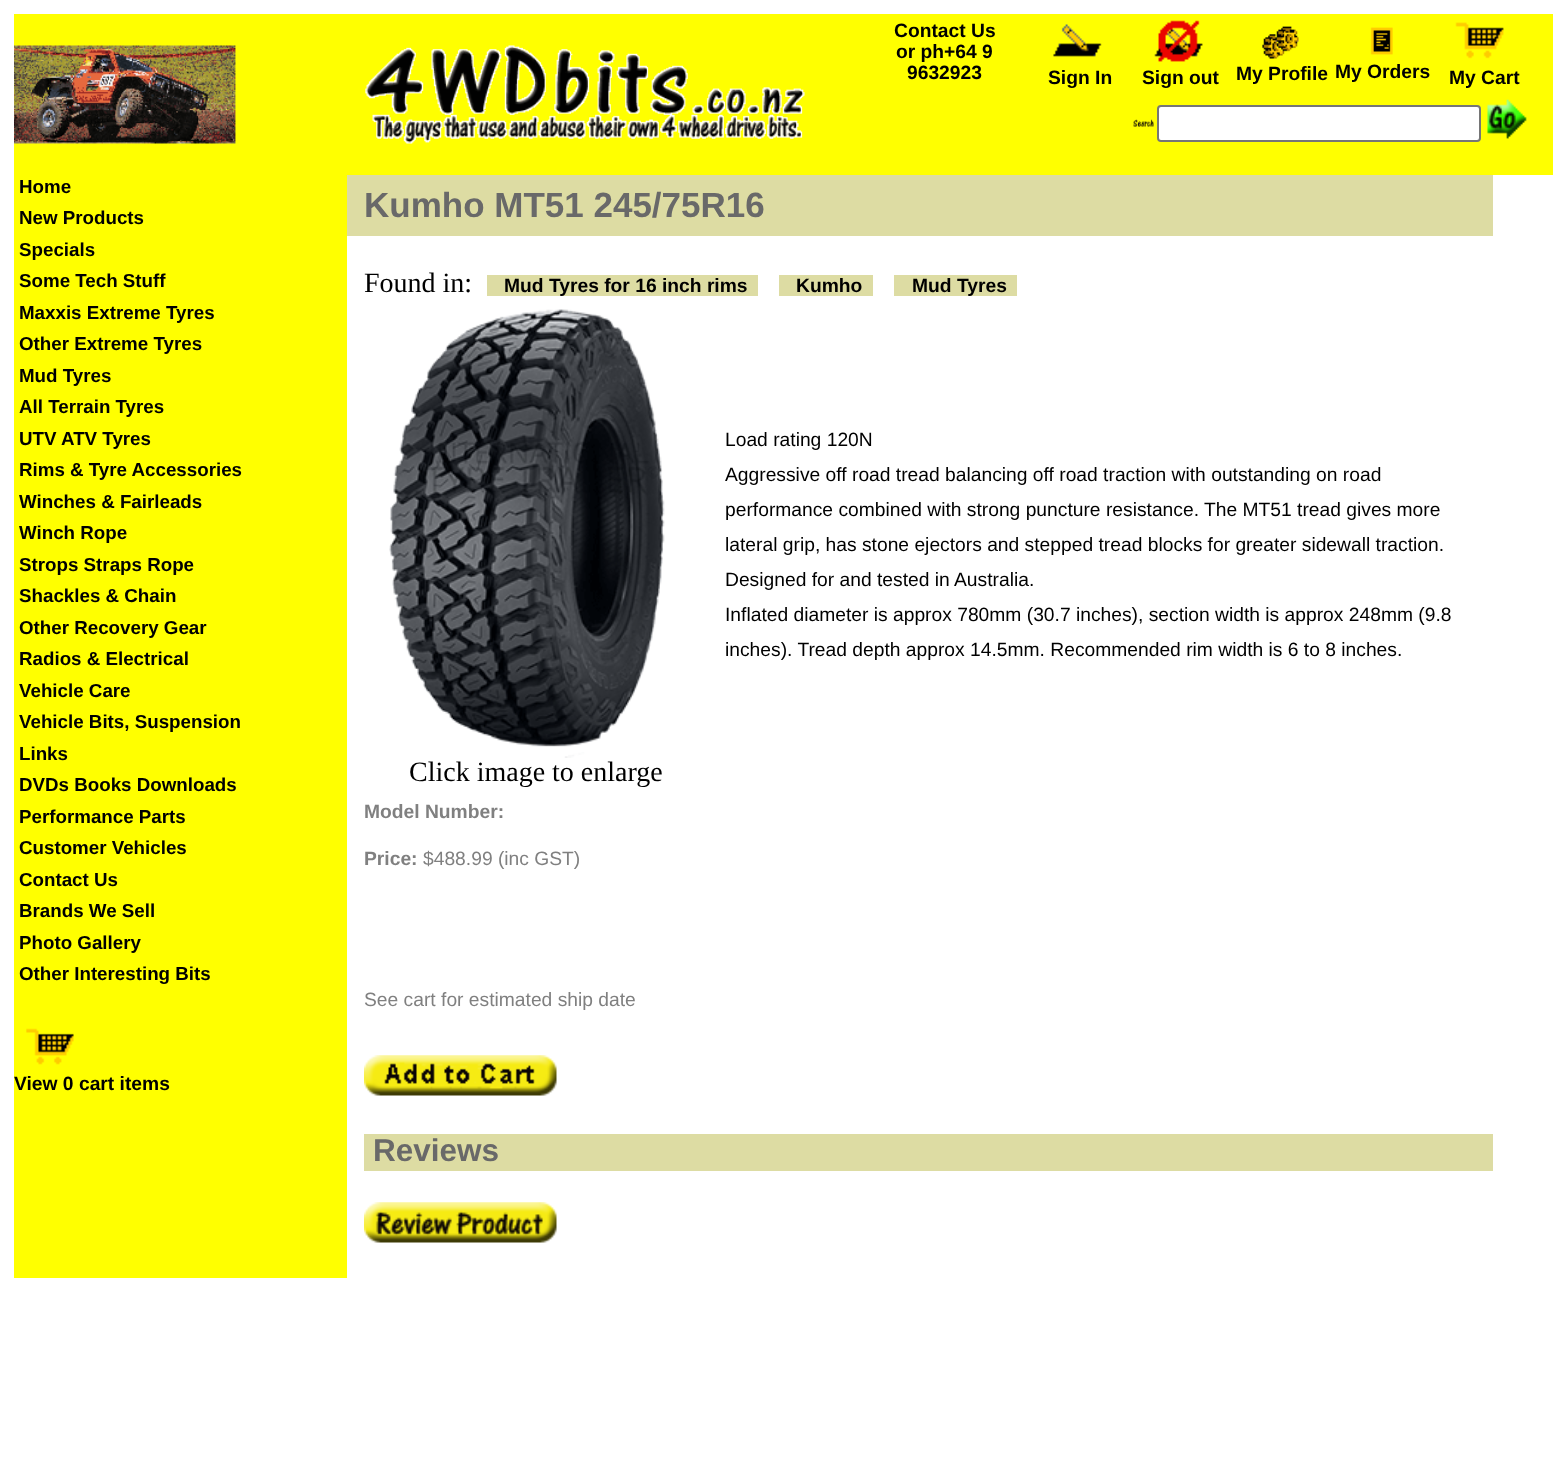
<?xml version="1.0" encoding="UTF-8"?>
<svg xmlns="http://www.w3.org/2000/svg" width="1565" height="1457">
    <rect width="100%" height="100%" fill="#FFFFFF"/>
    <rect x="14" y="14" width="1539" height="161" fill="#FFFF00"/>
    <image x="14" y="45" width="791" height="99" href="img_01.png"/>
    <text x="894" y="37" font-family="Liberation Sans" font-size="19.25" font-weight="700" fill="#000000">Contact Us</text>
    <text x="896" y="58" font-family="Liberation Sans" font-size="19.25" font-weight="700" fill="#000000">or ph+64 9</text>
    <text x="907" y="79" font-family="Liberation Sans" font-size="19.25" font-weight="700" fill="#000000">9632923</text>
    <image x="1053" y="24" width="49" height="33" href="img_02.png"/>
    <text x="1048" y="84" font-family="Liberation Sans" font-size="19.25" font-weight="700" fill="#000000">Sign In</text>
    <image x="1154" y="20" width="49" height="42" href="img_03.png"/>
    <text x="1142" y="84" font-family="Liberation Sans" font-size="19.25" font-weight="700" fill="#000000">Sign out</text>
    <image x="1262" y="26" width="37" height="33" href="img_04.png"/>
    <text x="1236" y="80" font-family="Liberation Sans" font-size="19.25" font-weight="700" fill="#000000">My Profile</text>
    <image x="1370" y="27" width="23" height="28" href="img_05.png"/>
    <text x="1335" y="78" font-family="Liberation Sans" font-size="19.25" font-weight="700" fill="#000000">My Orders</text>
    <image x="1455" y="22" width="49" height="37" href="img_06.png"/>
    <text x="1449" y="84" font-family="Liberation Sans" font-size="19.25" font-weight="700" fill="#000000">My Cart</text>
    <image x="1133" y="119" width="21" height="8" href="img_07.png"/>
    <rect x="1158" y="106" width="322" height="35" rx="3" fill="#FFFFFF" stroke="#767676" stroke-width="2"/>
    <image x="1487" y="99" width="40" height="40" href="img_08.png"/>
    <rect x="14" y="175" width="333" height="1103" fill="#FFFF00"/>
    <text font-family="Liberation Sans" font-size="18.75" font-weight="700" fill="#000000">
        <tspan x="19" y="193">Home</tspan>
        <tspan x="19" y="224">New Products</tspan>
        <tspan x="19" y="256">Specials</tspan>
        <tspan x="19" y="287">Some Tech Stuff</tspan>
        <tspan x="19" y="319">Maxxis Extreme Tyres</tspan>
        <tspan x="19" y="350">Other Extreme Tyres</tspan>
        <tspan x="19" y="382">Mud Tyres</tspan>
        <tspan x="19" y="413">All Terrain Tyres</tspan>
        <tspan x="19" y="445">UTV ATV Tyres</tspan>
        <tspan x="19" y="476">Rims &amp; Tyre Accessories</tspan>
        <tspan x="19" y="508">Winches &amp; Fairleads</tspan>
        <tspan x="19" y="539">Winch Rope</tspan>
        <tspan x="19" y="571">Strops Straps Rope</tspan>
        <tspan x="19" y="602">Shackles &amp; Chain</tspan>
        <tspan x="19" y="634">Other Recovery Gear</tspan>
        <tspan x="19" y="665">Radios &amp; Electrical</tspan>
        <tspan x="19" y="697">Vehicle Care</tspan>
        <tspan x="19" y="728">Vehicle Bits, Suspension</tspan>
        <tspan x="19" y="760">Links</tspan>
        <tspan x="19" y="791">DVDs Books Downloads</tspan>
        <tspan x="19" y="823">Performance Parts</tspan>
        <tspan x="19" y="854">Customer Vehicles</tspan>
        <tspan x="19" y="886">Contact Us</tspan>
        <tspan x="19" y="917">Brands We Sell</tspan>
        <tspan x="19" y="949">Photo Gallery</tspan>
        <tspan x="19" y="980">Other Interesting Bits</tspan>
    </text>
    <image x="26" y="1028" width="48" height="37" href="img_09.png"/>
    <text x="14" y="1090" font-family="Liberation Sans" font-size="19.25" font-weight="700" fill="#000000">View 0 cart items</text>
    <rect x="347" y="175" width="1146" height="61" fill="#DDDCA3"/>
    <text x="364" y="217" font-family="Liberation Sans" font-size="35" font-weight="700" fill="#696969">Kumho MT51 245/75R16</text>
    <text x="364" y="292" font-family="Liberation Serif" font-size="28" fill="#000000">Found in:</text>
    <rect x="487" y="275" width="271" height="21" fill="#DDDCA3"/>
    <text x="504" y="292" font-family="Liberation Sans" font-size="19.25" font-weight="700" fill="#000000">Mud Tyres for 16 inch rims</text>
    <rect x="779" y="275" width="94" height="21" fill="#DDDCA3"/>
    <text x="796" y="292" font-family="Liberation Sans" font-size="19.25" font-weight="700" fill="#000000">Kumho</text>
    <rect x="894" y="275" width="123" height="21" fill="#DDDCA3"/>
    <text x="912" y="292" font-family="Liberation Sans" font-size="19.25" font-weight="700" fill="#000000">Mud Tyres</text>
    <text font-family="Liberation Sans" font-size="19.25" fill="#000000">
        <tspan x="725" y="446">Load rating 120N</tspan>
        <tspan x="725" y="481">Aggressive off road tread balancing off road traction with outstanding on road</tspan>
        <tspan x="725" y="516">performance combined with strong puncture resistance. The MT51 tread gives more</tspan>
        <tspan x="725" y="551">lateral grip, has stone ejectors and stepped tread blocks for greater sidewall traction.</tspan>
        <tspan x="725" y="586">Designed for and tested in Australia.</tspan>
        <tspan x="725" y="621">Inflated diameter is approx 780mm (30.7 inches), section width is approx 248mm (9.8</tspan>
        <tspan x="725" y="656">inches). Tread depth approx 14.5mm. Recommended rim width is 6 to 8 inches.</tspan>
    </text>
    <image x="389" y="309" width="276" height="449" href="img_10.png"/>
    <text x="409" y="781" font-family="Liberation Serif" font-size="28" fill="#000000">Click image to enlarge</text>
    <text x="364" y="818" font-family="Liberation Sans" font-size="19.25" font-weight="700" fill="#808080">Model Number:</text>
    <text x="364" y="865" font-family="Liberation Sans" font-size="19.25" font-weight="700" fill="#808080">Price:</text>
    <text x="423" y="865" font-family="Liberation Sans" font-size="19.25" fill="#808080">$488.99 (inc GST)</text>
    <text x="364" y="1006" font-family="Liberation Sans" font-size="19.25" fill="#808080">See cart for estimated ship date</text>
    <image x="364" y="1055" width="193" height="41" href="img_11.png"/>
    <rect x="364" y="1134" width="1129" height="37" fill="#DDDCA3"/>
    <text x="373" y="1161" font-family="Liberation Sans" font-size="31.5" font-weight="700" fill="#696969">Reviews</text>
    <image x="364" y="1202" width="193" height="41" href="img_12.png"/>
</svg>
